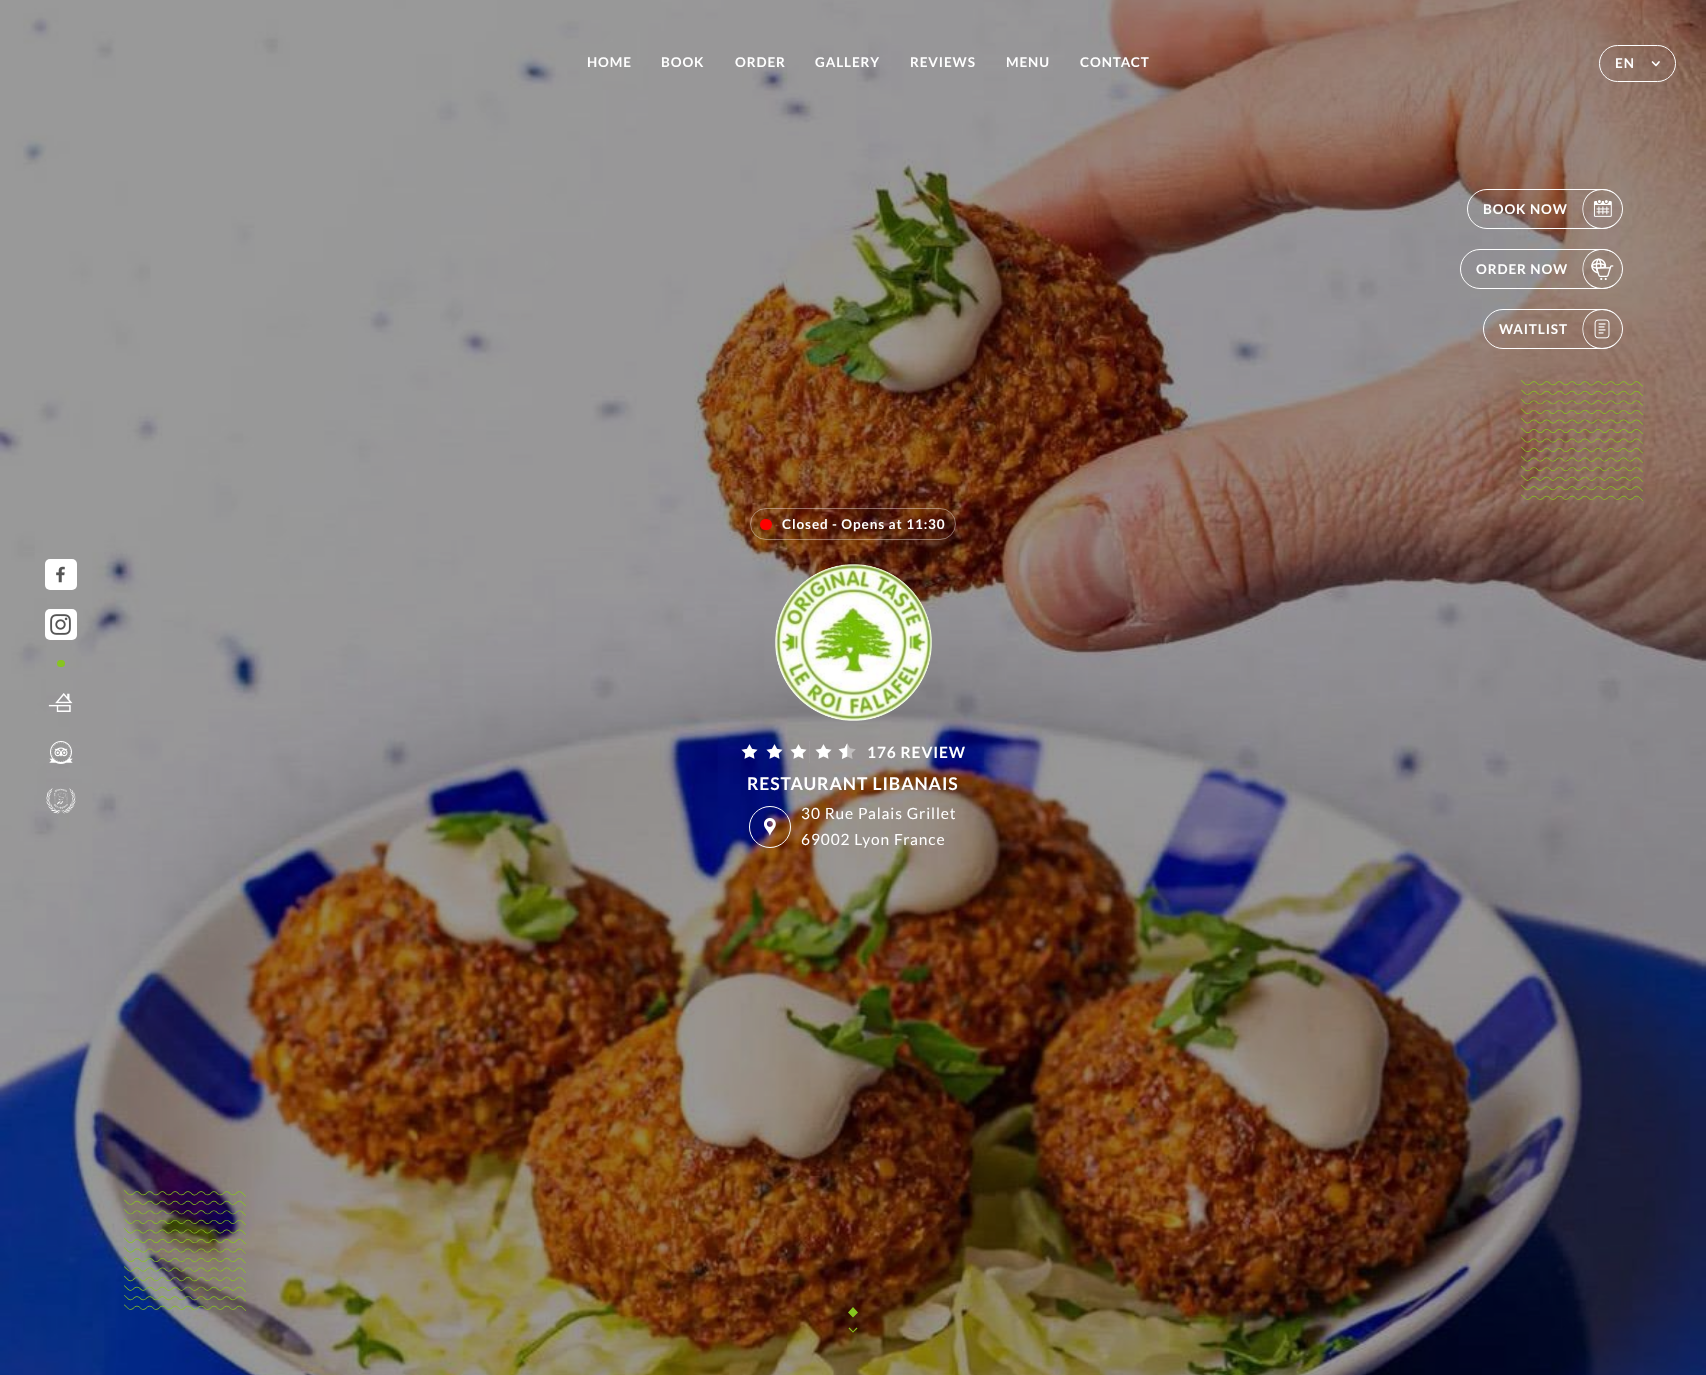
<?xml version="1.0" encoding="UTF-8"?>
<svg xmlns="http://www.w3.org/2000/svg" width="1706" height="1375">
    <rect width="100%" height="100%" fill="#FFFFFF"/>
    <image x="0" y="0" width="1706" height="1375" href="img_01.png"/>
    <text x="587" y="67" font-family="Lato" font-size="13.5" font-weight="700" letter-spacing="0.9" fill="#FFFFFF">HOME</text>
    <text x="661" y="67" font-family="Lato" font-size="13.5" font-weight="700" letter-spacing="0.9" fill="#FFFFFF">BOOK</text>
    <text x="735" y="67" font-family="Lato" font-size="13.5" font-weight="700" letter-spacing="0.9" fill="#FFFFFF">ORDER</text>
    <text x="815" y="67" font-family="Lato" font-size="13.5" font-weight="700" letter-spacing="0.9" fill="#FFFFFF">GALLERY</text>
    <text x="910" y="67" font-family="Lato" font-size="13.5" font-weight="700" letter-spacing="0.9" fill="#FFFFFF">REVIEWS</text>
    <text x="1006" y="67" font-family="Lato" font-size="13.5" font-weight="700" letter-spacing="0.9" fill="#FFFFFF">MENU</text>
    <text x="1080" y="67" font-family="Lato" font-size="13.5" font-weight="700" letter-spacing="0.9" fill="#FFFFFF">CONTACT</text>
    <rect x="1599.5" y="45.5" width="76" height="36" rx="18" fill="none" stroke="#FFFFFF"/>
    <text x="1615" y="68" font-family="Lato" font-size="13.5" font-weight="700" letter-spacing="0.9" fill="#FFFFFF">EN</text>
    <path d="M 1652.5 62 L 1656 65.5 L 1659 62" fill="none" stroke="#FFFFFF" stroke-width="1.7" stroke-linecap="round" stroke-linejoin="round"/>
    <rect x="1467.5" y="189.5" width="155" height="39" rx="19.5" fill="none" stroke="#FFFFFF"/>
    <text x="1483" y="214" font-family="Lato" font-size="13.5" font-weight="700" letter-spacing="0.9" fill="#FFFFFF">BOOK NOW</text>
    <path d="M 1602 189 C 1628 189 1628 229 1602 229 C 1576 229 1576 189 1602 189 Z M 1602 190 C 1628 190 1628 228 1602 228 C 1577 228 1577 190 1602 190 Z" fill="#FFFFFF" fill-rule="evenodd"/>
    <image x="1593" y="200" width="19" height="17" href="img_02.png"/>
    <rect x="1460.5" y="249.5" width="162" height="39" rx="19.5" fill="none" stroke="#FFFFFF"/>
    <text x="1476" y="274" font-family="Lato" font-size="13.5" font-weight="700" letter-spacing="0.9" fill="#FFFFFF">ORDER NOW</text>
    <path d="M 1602 249 C 1628 249 1628 289 1602 289 C 1576 289 1576 249 1602 249 Z M 1602 250 C 1628 250 1628 288 1602 288 C 1577 288 1577 250 1602 250 Z" fill="#FFFFFF" fill-rule="evenodd"/>
    <image x="1591" y="258" width="23" height="22" href="img_03.png"/>
    <rect x="1483.5" y="309.5" width="139" height="39" rx="19.5" fill="none" stroke="#FFFFFF"/>
    <text x="1499" y="334" font-family="Lato" font-size="13.5" font-weight="700" letter-spacing="0.9" fill="#FFFFFF">WAITLIST</text>
    <path d="M 1602 309 C 1628 309 1628 349 1602 349 C 1576 349 1576 309 1602 309 Z M 1602 310 C 1628 310 1628 348 1602 348 C 1577 348 1577 310 1602 310 Z" fill="#FFFFFF" fill-rule="evenodd"/>
    <image x="1594" y="319" width="16" height="20" href="img_04.png"/>
    <rect x="45" y="559" width="32" height="31" rx="5" fill="#FFFFFF"/>
    <image x="56" y="566" width="9" height="17" href="img_05.png"/>
    <rect x="45" y="609" width="32" height="31" rx="5" fill="#FFFFFF"/>
    <image x="50" y="614" width="21" height="21" href="img_06.png"/>
    <rect x="57" y="660" width="8" height="7" rx="3.5" fill="#87C41F"/>
    <image x="48" y="693" width="25" height="19" href="img_07.png"/>
    <image x="49" y="741" width="24" height="23" href="img_08.png"/>
    <image x="46" y="788" width="30" height="26" href="img_09.png"/>
    <rect x="750.5" y="508.5" width="205" height="31" rx="15.5" fill="none" stroke="#FFFFFF" stroke-opacity="0.4"/>
    <rect x="760" y="519" width="12" height="11" rx="5.5" fill="#FF0000"/>
    <text x="782" y="529" font-family="Lato" font-size="13.5" font-weight="700" letter-spacing="0.9" fill="#FFFFFF">Closed - Opens at 11:30</text>
    <image x="775" y="564" width="157" height="157" href="img_10.png"/>
    <image x="741" y="744" width="17" height="15" href="img_11.png"/>
    <image x="766" y="744" width="17" height="15" href="img_12.png"/>
    <image x="790" y="741" width="20" height="22" href="img_13.png"/>
    <image x="815" y="744" width="17" height="15" href="img_14.png"/>
    <image x="838" y="743" width="18" height="16" href="img_15.png"/>
    <text x="867" y="758" font-family="Lato" font-size="15.5" font-weight="700" letter-spacing="0.9" fill="#FFFFFF">176 REVIEW</text>
    <text x="747" y="790" font-family="Lato" font-size="17.5" font-weight="700" letter-spacing="0.9" fill="#FFFFFF">RESTAURANT LIBANAIS</text>
    <circle cx="770" cy="827" r="20.5" fill="none" stroke="#FFFFFF"/>
    <image x="764" y="818" width="12" height="18" href="img_16.png"/>
    <text font-family="Lato" font-size="15.5" letter-spacing="0.9" fill="#FFFFFF">
        <tspan x="801" y="819">30 Rue Palais Grillet</tspan>
        <tspan x="801" y="845">69002 Lyon France</tspan>
    </text>
    <image x="1521" y="380" width="122" height="121" href="img_17.png"/>
    <image x="124" y="1190" width="122" height="121" href="img_18.png"/>
    <path d="M 853 1307 L 858 1312.5 L 853 1317.5 L 848 1312.5 Z M 856.5 1327.5 L 857.5 1328.5 L 853 1332.5 L 852.5 1332 Z" fill="#87C41F"/>
    <path d="M 849.5 1327.5 L 853.5 1332 L 853 1332.5 L 848.5 1328.5 Z" fill="#87C41F"/>
</svg>
